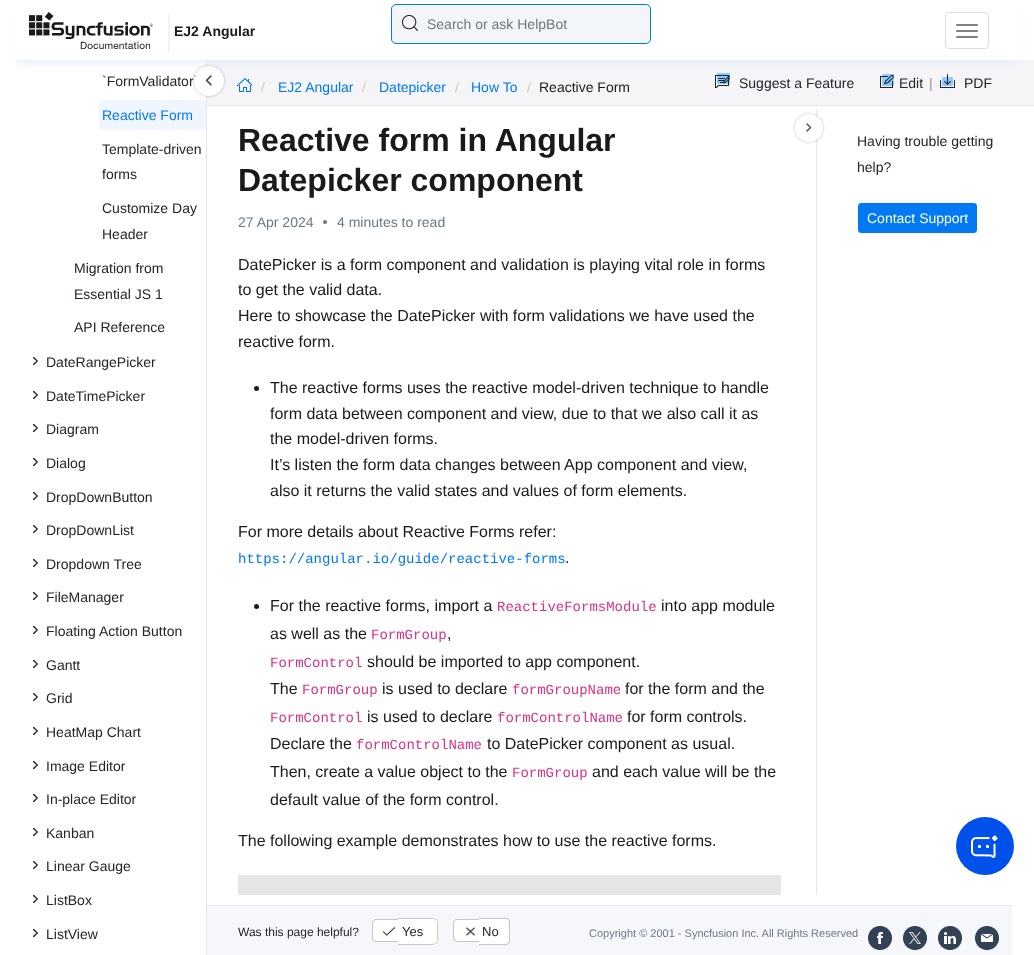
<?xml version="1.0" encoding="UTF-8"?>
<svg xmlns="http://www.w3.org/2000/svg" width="1034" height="955">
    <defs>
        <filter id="blur1" x="-50%" y="-200%" width="200%" height="500%"><feGaussianBlur stdDeviation="5.5"/></filter>
    </defs>
    <rect width="100%" height="100%" fill="#FFFFFF"/>
    <rect x="207" y="60" width="827" height="45" fill="#F5F5F7"/>
    <image x="237" y="78" width="15" height="14" href="img_03.png"/>
    <image x="715" y="73" width="15" height="15" href="img_04.png"/>
    <image x="880" y="74" width="14" height="14" href="img_05.png"/>
    <image x="940" y="74" width="15" height="14" href="img_06.png"/>
    <rect x="206" y="60" width="1" height="895" fill="#E7E7E7"/>
    <text x="102" y="86" font-family="Liberation Sans" font-size="14" fill="#22252A">`FormValidator`</text>
    <image x="192" y="64" width="34" height="34" href="img_08.png"/>
    <rect x="18" y="14" width="998" height="48" fill="#E2EAF5" filter="url(#blur1)"/>
    <rect x="12" y="7" width="1010" height="53" fill="#FFFFFF"/>
    <image x="29" y="12" width="141" height="40" href="img_01.png"/>
    <text x="174" y="36" font-family="Liberation Sans" font-size="14" font-weight="700" fill="#1A1A1A">EJ2 Angular</text>
    <rect x="391" y="4" width="260" height="40" rx="5" fill="#F4F5F8"/>
    <image x="402" y="15" width="16" height="16" href="img_02.png"/>
    <rect x="391.5" y="4.5" width="259" height="39" rx="4.5" fill="none" stroke="#0079F3"/>
    <text x="427" y="29" font-family="Liberation Sans" font-size="14" fill="#757575">Search or ask HelpBot</text>
    <rect x="945.5" y="12.5" width="43" height="36" rx="3.5" fill="none" stroke="#DDDDDD"/>
    <rect x="956" y="24" width="22" height="2" rx="1" fill="#808080"/>
    <rect x="956" y="30" width="22" height="2" rx="1" fill="#808080"/>
    <rect x="956" y="36" width="22" height="2" rx="1" fill="#808080"/>
    <rect x="207" y="105" width="827" height="1" fill="#E7E7E7"/>
    <text x="261" y="92" font-family="Liberation Sans" font-size="14" fill="#CCCCCC">/</text>
    <text x="278" y="92" font-family="Liberation Sans" font-size="14" fill="#0079F3">EJ2 Angular</text>
    <text x="362" y="92" font-family="Liberation Sans" font-size="14" fill="#CCCCCC">/</text>
    <text x="379" y="92" font-family="Liberation Sans" font-size="14" fill="#0079F3">Datepicker</text>
    <text x="455" y="92" font-family="Liberation Sans" font-size="14" fill="#CCCCCC">/</text>
    <text x="471" y="92" font-family="Liberation Sans" font-size="14" fill="#0079F3">How To</text>
    <text x="527" y="92" font-family="Liberation Sans" font-size="14" fill="#CCCCCC">/</text>
    <text x="539" y="92" font-family="Liberation Sans" font-size="14" fill="#1A1A1A">Reactive Form</text>
    <text x="739" y="88" font-family="Liberation Sans" font-size="14" fill="#22252A">Suggest a Feature</text>
    <text x="899" y="88" font-family="Liberation Sans" font-size="14" fill="#22252A">Edit</text>
    <text x="929" y="88" font-family="Liberation Sans" font-size="14" fill="#979797">|</text>
    <text x="964" y="88" font-family="Liberation Sans" font-size="14" fill="#22252A">PDF</text>
    <path d="M 103 100 H 206 V 130 H 103 C 101 130 99 128 99 126 V 104 C 99 102 101 100 103 100 Z" fill="#EFF6FF"/>
    <text x="102" y="120" font-family="Liberation Sans" font-size="14" fill="#0079F3">Reactive Form</text>
    <text font-family="Liberation Sans" font-size="14" fill="#22252A">
        <tspan x="102" y="154">Template-driven</tspan>
        <tspan x="102" y="179">forms</tspan>
    </text>
    <text font-family="Liberation Sans" font-size="14" fill="#22252A">
        <tspan x="102" y="213">Customize Day</tspan>
        <tspan x="102" y="239">Header</tspan>
    </text>
    <text font-family="Liberation Sans" font-size="14" fill="#22252A">
        <tspan x="74" y="273">Migration from</tspan>
        <tspan x="74" y="299">Essential JS 1</tspan>
    </text>
    <text x="74" y="332" font-family="Liberation Sans" font-size="14" fill="#22252A">API Reference</text>
    <image x="33" y="357" width="6" height="8" href="img_07.png"/>
    <text x="46" y="367" font-family="Liberation Sans" font-size="14" fill="#22252A">DateRangePicker</text>
    <image x="33" y="391" width="6" height="8" href="img_07.png"/>
    <text x="46" y="401" font-family="Liberation Sans" font-size="14" fill="#22252A">DateTimePicker</text>
    <image x="33" y="424" width="6" height="8" href="img_07.png"/>
    <text x="46" y="434" font-family="Liberation Sans" font-size="14" fill="#22252A">Diagram</text>
    <image x="33" y="458" width="6" height="8" href="img_07.png"/>
    <text x="46" y="468" font-family="Liberation Sans" font-size="14" fill="#22252A">Dialog</text>
    <image x="33" y="492" width="6" height="8" href="img_07.png"/>
    <text x="46" y="502" font-family="Liberation Sans" font-size="14" fill="#22252A">DropDownButton</text>
    <image x="33" y="525" width="6" height="8" href="img_07.png"/>
    <text x="46" y="535" font-family="Liberation Sans" font-size="14" fill="#22252A">DropDownList</text>
    <image x="33" y="559" width="6" height="8" href="img_07.png"/>
    <text x="46" y="569" font-family="Liberation Sans" font-size="14" fill="#22252A">Dropdown Tree</text>
    <image x="33" y="592" width="6" height="8" href="img_07.png"/>
    <text x="46" y="602" font-family="Liberation Sans" font-size="14" fill="#22252A">FileManager</text>
    <image x="33" y="626" width="6" height="8" href="img_07.png"/>
    <text x="46" y="636" font-family="Liberation Sans" font-size="14" fill="#22252A">Floating Action Button</text>
    <image x="33" y="660" width="6" height="8" href="img_07.png"/>
    <text x="46" y="670" font-family="Liberation Sans" font-size="14" fill="#22252A">Gantt</text>
    <image x="33" y="693" width="6" height="8" href="img_07.png"/>
    <text x="46" y="703" font-family="Liberation Sans" font-size="14" fill="#22252A">Grid</text>
    <image x="33" y="727" width="6" height="8" href="img_07.png"/>
    <text x="46" y="737" font-family="Liberation Sans" font-size="14" fill="#22252A">HeatMap Chart</text>
    <image x="33" y="761" width="6" height="8" href="img_07.png"/>
    <text x="46" y="771" font-family="Liberation Sans" font-size="14" fill="#22252A">Image Editor</text>
    <image x="33" y="794" width="6" height="8" href="img_07.png"/>
    <text x="46" y="804" font-family="Liberation Sans" font-size="14" fill="#22252A">In-place Editor</text>
    <image x="33" y="828" width="6" height="8" href="img_07.png"/>
    <text x="46" y="838" font-family="Liberation Sans" font-size="14" fill="#22252A">Kanban</text>
    <image x="33" y="861" width="6" height="8" href="img_07.png"/>
    <text x="46" y="871" font-family="Liberation Sans" font-size="14" fill="#22252A">Linear Gauge</text>
    <image x="33" y="895" width="6" height="8" href="img_07.png"/>
    <text x="46" y="905" font-family="Liberation Sans" font-size="14" fill="#22252A">ListBox</text>
    <image x="33" y="929" width="6" height="8" href="img_07.png"/>
    <text x="46" y="939" font-family="Liberation Sans" font-size="14" fill="#22252A">ListView</text>
    <rect x="816" y="110" width="1" height="785" fill="#E7E7E7"/>
    <text font-family="Liberation Sans" font-size="32" font-weight="700" fill="#1A1A1A">
        <tspan x="238" y="151">Reactive form in Angular</tspan>
        <tspan x="238" y="191">Datepicker component</tspan>
    </text>
    <text x="238" y="227" font-family="Liberation Sans" font-size="14" fill="#6C7786">27 Apr 2024</text>
    <circle cx="325" cy="222" r="2" fill="#6C7786"/>
    <text x="337" y="227" font-family="Liberation Sans" font-size="14" fill="#6C7786">4 minutes to read</text>
    <text font-family="Liberation Sans" font-size="16" fill="#1A1A1A">
        <tspan x="238" y="270">DatePicker is a form component and validation is playing vital role in forms</tspan>
        <tspan x="238" y="295">to get the valid data.</tspan>
        <tspan x="238" y="321">Here to showcase the DatePicker with form validations we have used the</tspan>
        <tspan x="238" y="347">reactive form.</tspan>
    </text>
    <circle cx="256.5" cy="388.5" r="2.5" fill="#1A1A1A"/>
    <text font-family="Liberation Sans" font-size="16" fill="#1A1A1A">
        <tspan x="270" y="393">The reactive forms uses the reactive model-driven technique to handle</tspan>
        <tspan x="270" y="419">form data between component and view, due to that we also call it as</tspan>
        <tspan x="270" y="444">the model-driven forms.</tspan>
        <tspan x="270" y="470">It’s listen the form data changes between App component and view,</tspan>
        <tspan x="270" y="496">also it returns the valid states and values of form elements.</tspan>
    </text>
    <text x="238" y="537" font-family="Liberation Sans" font-size="16" fill="#1A1A1A">For more details about Reactive Forms refer:</text>
    <text x="238" y="563" font-family="Liberation Mono" font-size="14" fill="#0079F3">https://angular.io/guide/reactive-forms</text>
    <text x="565" y="563" font-family="Liberation Sans" font-size="16" fill="#1A1A1A">.</text>
    <circle cx="256.5" cy="606.5" r="2.5" fill="#1A1A1A"/>
    <text x="270" y="611" font-family="Liberation Sans" font-size="16" fill="#1A1A1A">For the reactive forms, import a</text>
    <text x="497" y="611" font-family="Liberation Mono" font-size="14" fill="#D63384">ReactiveFormsModule</text>
    <text x="661" y="611" font-family="Liberation Sans" font-size="16" fill="#1A1A1A">into app module</text>
    <text x="270" y="639" font-family="Liberation Sans" font-size="16" fill="#1A1A1A">as well as the</text>
    <text x="371" y="639" font-family="Liberation Mono" font-size="14" fill="#D63384">FormGroup</text>
    <text x="447" y="639" font-family="Liberation Sans" font-size="16" fill="#1A1A1A">,</text>
    <text x="270" y="667" font-family="Liberation Mono" font-size="14" fill="#D63384">FormControl</text>
    <text x="367" y="667" font-family="Liberation Sans" font-size="16" fill="#1A1A1A">should be imported to app component.</text>
    <text x="270" y="694" font-family="Liberation Sans" font-size="16" fill="#1A1A1A">The</text>
    <text x="302" y="694" font-family="Liberation Mono" font-size="14" fill="#D63384">FormGroup</text>
    <text x="382" y="694" font-family="Liberation Sans" font-size="16" fill="#1A1A1A">is used to declare</text>
    <text x="512" y="694" font-family="Liberation Mono" font-size="14" fill="#D63384">formGroupName</text>
    <text x="625" y="694" font-family="Liberation Sans" font-size="16" fill="#1A1A1A">for the form and the</text>
    <text x="270" y="722" font-family="Liberation Mono" font-size="14" fill="#D63384">FormControl</text>
    <text x="367" y="722" font-family="Liberation Sans" font-size="16" fill="#1A1A1A">is used to declare</text>
    <text x="497" y="722" font-family="Liberation Mono" font-size="14" fill="#D63384">formControlName</text>
    <text x="627" y="722" font-family="Liberation Sans" font-size="16" fill="#1A1A1A">for form controls.</text>
    <text x="270" y="749" font-family="Liberation Sans" font-size="16" fill="#1A1A1A">Declare the</text>
    <text x="356" y="749" font-family="Liberation Mono" font-size="14" fill="#D63384">formControlName</text>
    <text x="487" y="749" font-family="Liberation Sans" font-size="16" fill="#1A1A1A">to DatePicker component as usual.</text>
    <text x="270" y="777" font-family="Liberation Sans" font-size="16" fill="#1A1A1A">Then, create a value object to the</text>
    <text x="512" y="777" font-family="Liberation Mono" font-size="14" fill="#D63384">FormGroup</text>
    <text x="592" y="777" font-family="Liberation Sans" font-size="16" fill="#1A1A1A">and each value will be the</text>
    <text x="270" y="805" font-family="Liberation Sans" font-size="16" fill="#1A1A1A">default value of the form control.</text>
    <text x="238" y="846" font-family="Liberation Sans" font-size="16" fill="#1A1A1A">The following example demonstrates how to use the reactive forms.</text>
    <rect x="238" y="875" width="543" height="20" fill="#E6E6E6"/>
    <image x="793" y="112" width="32" height="32" href="img_09.png"/>
    <text font-family="Liberation Sans" font-size="14" fill="#22252A">
        <tspan x="857" y="146">Having trouble getting</tspan>
        <tspan x="857" y="172">help?</tspan>
    </text>
    <rect x="857.5" y="202.5" width="120" height="31" rx="3.5" fill="#0079F3" stroke="#FFFFFF"/>
    <text x="867" y="223" font-family="Liberation Sans" font-size="14" fill="#FFFFFF">Contact Support</text>
    <circle cx="985" cy="846" r="29" fill="#0050EB"/>
    <image x="971" y="835" width="27" height="23" href="img_10.png"/>
    <rect x="207" y="906" width="805" height="49" fill="#F5F7FA"/>
    <rect x="207" y="905" width="805" height="1" fill="#EAEAEA"/>
    <text x="238" y="936" font-family="Liberation Sans" font-size="12" fill="#22252A">Was this page helpful?</text>
    <path d="M 376 919 H 398 V 942 H 376 C 374 942 372 940 372 938 V 923 C 372 921 374 919 376 919 Z" fill="#FFFFFF"/>
    <path d="M 376 919 H 398 V 942 H 376 C 374 942 372 940 372 938 V 923 C 372 921 374 919 376 919 Z M 376 920 H 398 V 941 H 376 C 374.5 941 373 939.5 373 938 V 923 C 373 921.5 374.5 920 376 920 Z" fill="#C5C5C5" fill-rule="evenodd"/>
    <path d="M 398 918 H 434 C 436 918 438 920 438 922 V 941 C 438 943 436 945 434 945 H 398 Z" fill="#FFFFFF"/>
    <path d="M 398 918 H 428 C 440 918 438 920 438 932 C 438 943 440 945 428 945 H 398 Z M 398 919 H 428 C 440 919 437 920 437 932 C 437 943 440 944 428 944 H 398 Z" fill="#C5C5C5" fill-rule="evenodd"/>
    <image x="383" y="927" width="12" height="9" href="img_11.png"/>
    <text x="402" y="936" font-family="Liberation Sans" font-size="13" fill="#22252A">Yes</text>
    <path d="M 457 919 H 479 V 942 H 457 C 455 942 453 940 453 938 V 923 C 453 921 455 919 457 919 Z" fill="#FFFFFF"/>
    <path d="M 457 919 H 479 V 942 H 457 C 455 942 453 940 453 938 V 923 C 453 921 455 919 457 919 Z M 457 920 H 479 V 941 H 457 C 455.5 941 454 939.5 454 938 V 923 C 454 921.5 455.5 920 457 920 Z" fill="#C5C5C5" fill-rule="evenodd"/>
    <path d="M 479 918 H 506 C 508 918 510 920 510 922 V 941 C 510 943 508 945 506 945 H 479 Z" fill="#FFFFFF"/>
    <path d="M 479 918 H 506 C 508 918 510 920 510 922 V 941 C 510 943 508 945 506 945 H 479 Z M 479 919 H 506 C 507.5 919 509 920.5 509 922 V 941 C 509 942.5 507.5 944 506 944 H 479 Z" fill="#C5C5C5" fill-rule="evenodd"/>
    <image x="466" y="927" width="9" height="9" href="img_12.png"/>
    <text x="482" y="936" font-family="Liberation Sans" font-size="13" fill="#22252A">No</text>
    <text x="589" y="937" font-family="Liberation Sans" font-size="11" fill="#6C7786">Copyright © 2001 - Syncfusion Inc. All Rights Reserved</text>
    <image x="868" y="926" width="24" height="24" href="img_13.png"/>
    <image x="903" y="926" width="24" height="24" href="img_14.png"/>
    <image x="938" y="926" width="24" height="24" href="img_15.png"/>
    <image x="975" y="926" width="24" height="24" href="img_16.png"/>
</svg>
